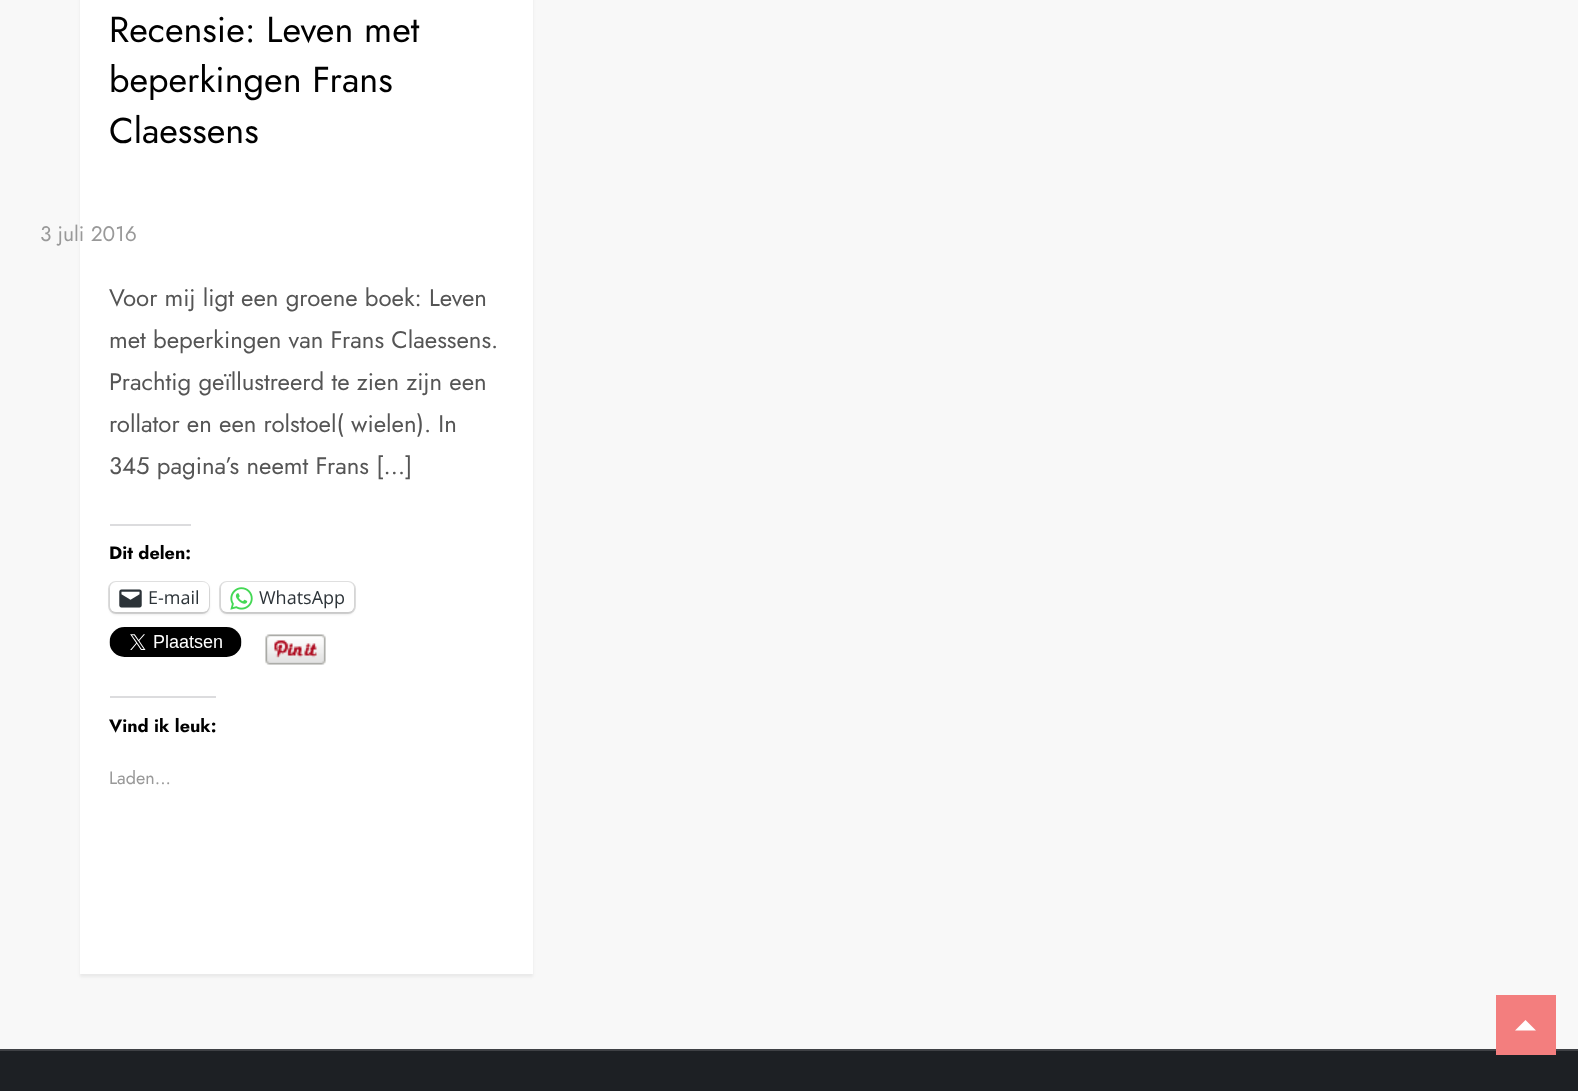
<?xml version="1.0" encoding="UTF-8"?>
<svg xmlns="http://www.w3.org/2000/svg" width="1578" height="1091">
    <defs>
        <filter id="blur1" x="-50%" y="-200%" width="200%" height="500%"><feGaussianBlur stdDeviation="1.5"/></filter>
    </defs>
    <rect width="100%" height="100%" fill="#F8F8F8"/>
    <rect x="80" y="-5" width="453" height="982" fill="#000000" fill-opacity="0.06" filter="url(#blur1)"/>
    <rect x="80" y="0" width="453" height="974" fill="#FFFFFF"/>
    <text font-family="Jost" font-size="36" fill="#000000">
        <tspan x="109" y="42">Recensie: Leven met</tspan>
        <tspan x="109" y="92">beperkingen Frans</tspan>
        <tspan x="109" y="143">Claessens</tspan>
    </text>
    <text x="40" y="241" font-family="Jost" font-size="21" fill="#999999">3 juli 2016</text>
    <text font-family="Jost" font-size="24" fill="#555555">
        <tspan x="109" y="306">Voor mij ligt een groene boek: Leven</tspan>
        <tspan x="109" y="348">met beperkingen van Frans Claessens.</tspan>
        <tspan x="109" y="390">Prachtig geïllustreerd te zien zijn een</tspan>
        <tspan x="109" y="432">rollator en een rolstoel( wielen). In</tspan>
        <tspan x="109" y="474">345 pagina’s neemt Frans […]</tspan>
    </text>
    <rect x="110" y="524" width="81" height="2" fill="#DCDCDE"/>
    <text x="109" y="559" font-family="Jost" font-size="18" font-weight="700" fill="#000000">Dit delen:</text>
    <rect x="109" y="582" width="100" height="31" rx="7" fill="none" stroke="#E0E0E0" stroke-width="2"/>
    <rect x="110" y="584" width="99" height="30" rx="6" fill="#000000" fill-opacity="0.12" filter="url(#blur1)"/>
    <rect x="110" y="582" width="99" height="30" rx="6" fill="#FFFFFF"/>
    <image x="119" y="589" width="23" height="19" href="img_01.png"/>
    <text x="148" y="604" font-family="Open Sans" font-size="18" fill="#2C3338">E-mail</text>
    <rect x="220" y="582" width="135" height="31" rx="7" fill="none" stroke="#E0E0E0" stroke-width="2"/>
    <rect x="221" y="584" width="133" height="30" rx="6" fill="#000000" fill-opacity="0.12" filter="url(#blur1)"/>
    <rect x="221" y="582" width="133" height="30" rx="6" fill="#FFFFFF"/>
    <image x="230" y="587" width="23" height="23" href="img_02.png"/>
    <text x="259" y="604" font-family="Open Sans" font-size="18" fill="#2C3338">WhatsApp</text>
    <image x="109" y="627" width="133" height="30" href="img_03.png"/>
    <image x="265" y="634" width="61" height="31" href="img_04.png"/>
    <rect x="110" y="696" width="106" height="2" fill="#DCDCDE"/>
    <text x="109" y="732" font-family="Jost" font-size="18" font-weight="700" fill="#000000">Vind ik leuk:</text>
    <text x="109" y="784" font-family="Jost" font-size="18" fill="#999999">Laden...</text>
    <rect x="0" y="1051" width="1578" height="40" fill="#1D2024"/>
    <rect x="0" y="1049" width="1578" height="2" fill="#3F4145"/>
    <rect x="1496" y="995" width="60" height="60" fill="#F37E7E"/>
    <path d="M 1536 1030.5 H 1515 L 1525.5 1020 Z" fill="#FFFFFF"/>
</svg>
